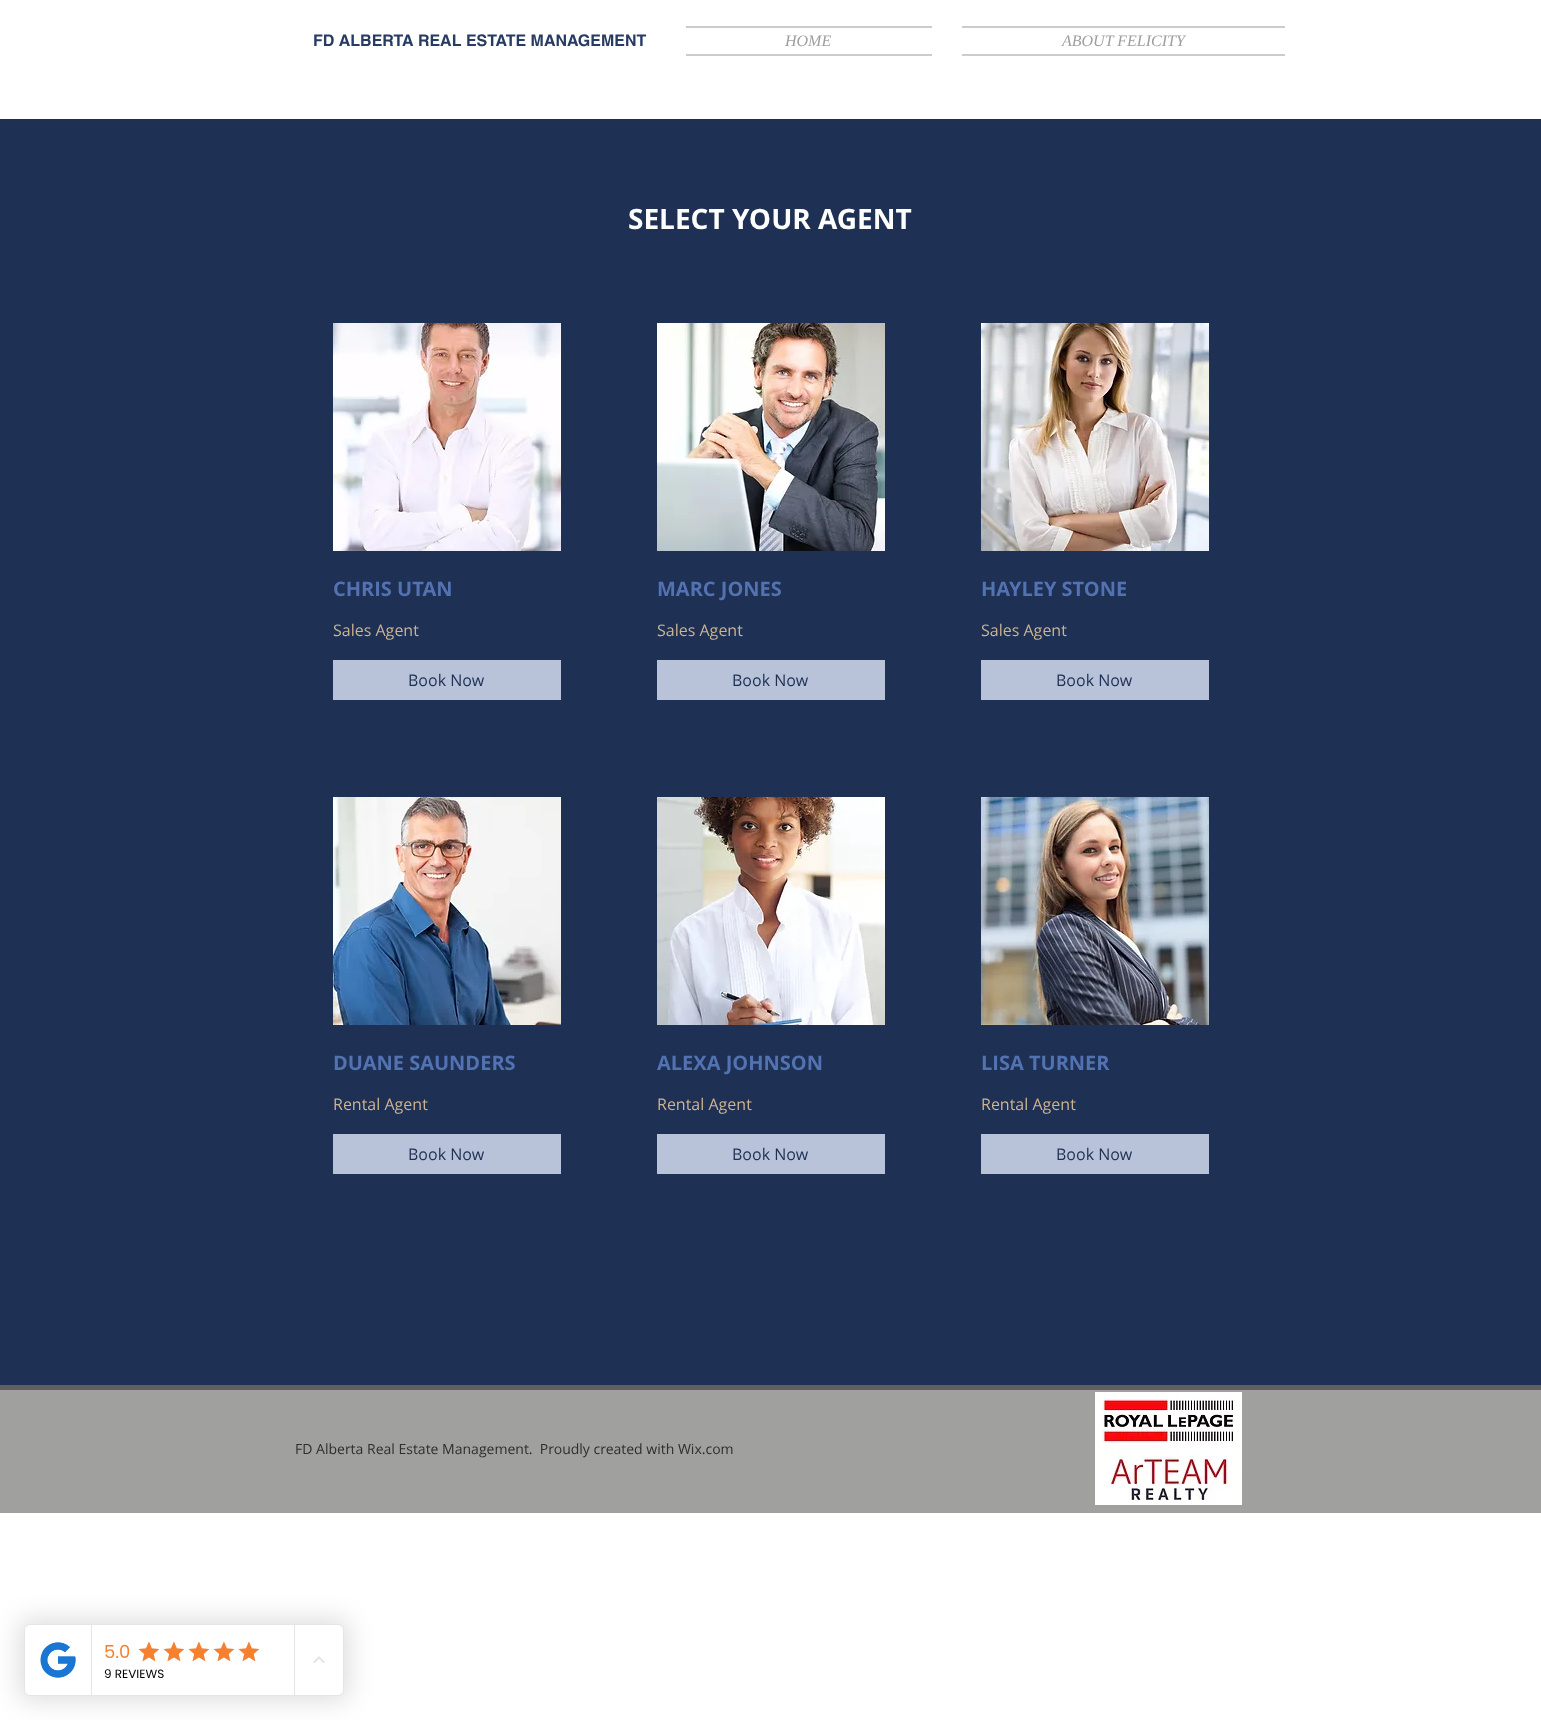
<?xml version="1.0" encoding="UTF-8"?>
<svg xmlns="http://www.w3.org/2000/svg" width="1541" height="1720">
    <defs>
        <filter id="blur1" x="-50%" y="-200%" width="200%" height="500%"><feGaussianBlur stdDeviation="12"/></filter>
    </defs>
    <rect width="100%" height="100%" fill="#FFFFFF"/>
    <text x="313" y="46" font-family="helvetica" font-size="16" font-weight="700" fill="#283B62">FD ALBERTA REAL ESTATE MANAGEMENT</text>
    <rect x="686" y="26" width="246" height="2" fill="#CCCCCC"/>
    <rect x="686" y="54" width="246" height="2" fill="#CCCCCC"/>
    <text x="785" y="46" font-family="Liberation Serif" font-size="16" font-style="italic" fill="#9E9E9E">HOME</text>
    <rect x="962" y="26" width="323" height="2" fill="#CCCCCC"/>
    <rect x="962" y="54" width="323" height="2" fill="#CCCCCC"/>
    <text x="1062" y="46" font-family="Liberation Serif" font-size="16" font-style="italic" fill="#9E9E9E">ABOUT FELICITY</text>
    <rect x="0" y="119" width="1541" height="1266" fill="#1E3054"/>
    <text x="628" y="229" font-family="Open Sans" font-size="28" font-weight="700" fill="#FFFFFF">SELECT YOUR AGENT</text>
    <image x="333" y="323" width="228" height="228" href="img_01.png"/>
    <text x="333" y="596" font-family="Open Sans" font-size="20" font-weight="700" fill="#5272B2">CHRIS UTAN</text>
    <text x="333" y="636" font-family="Open Sans" font-size="16" fill="#CBB492">Sales Agent</text>
    <rect x="333" y="660" width="228" height="40" fill="#B8C2D8"/>
    <text x="408" y="686" font-family="Open Sans" font-size="16" fill="#1E3054">Book Now</text>
    <image x="333" y="797" width="228" height="228" href="img_02.png"/>
    <text x="333" y="1070" font-family="Open Sans" font-size="20" font-weight="700" fill="#5272B2">DUANE SAUNDERS</text>
    <text x="333" y="1110" font-family="Open Sans" font-size="16" fill="#CBB492">Rental Agent</text>
    <rect x="333" y="1134" width="228" height="40" fill="#B8C2D8"/>
    <text x="408" y="1160" font-family="Open Sans" font-size="16" fill="#1E3054">Book Now</text>
    <image x="657" y="323" width="228" height="228" href="img_03.png"/>
    <text x="657" y="596" font-family="Open Sans" font-size="20" font-weight="700" fill="#5272B2">MARC JONES</text>
    <text x="657" y="636" font-family="Open Sans" font-size="16" fill="#CBB492">Sales Agent</text>
    <rect x="657" y="660" width="228" height="40" fill="#B8C2D8"/>
    <text x="732" y="686" font-family="Open Sans" font-size="16" fill="#1E3054">Book Now</text>
    <image x="657" y="797" width="228" height="228" href="img_04.png"/>
    <text x="657" y="1070" font-family="Open Sans" font-size="20" font-weight="700" fill="#5272B2">ALEXA JOHNSON</text>
    <text x="657" y="1110" font-family="Open Sans" font-size="16" fill="#CBB492">Rental Agent</text>
    <rect x="657" y="1134" width="228" height="40" fill="#B8C2D8"/>
    <text x="732" y="1160" font-family="Open Sans" font-size="16" fill="#1E3054">Book Now</text>
    <image x="981" y="323" width="228" height="228" href="img_05.png"/>
    <text x="981" y="596" font-family="Open Sans" font-size="20" font-weight="700" fill="#5272B2">HAYLEY STONE</text>
    <text x="981" y="636" font-family="Open Sans" font-size="16" fill="#CBB492">Sales Agent</text>
    <rect x="981" y="660" width="228" height="40" fill="#B8C2D8"/>
    <text x="1056" y="686" font-family="Open Sans" font-size="16" fill="#1E3054">Book Now</text>
    <image x="981" y="797" width="228" height="228" href="img_06.png"/>
    <text x="981" y="1070" font-family="Open Sans" font-size="20" font-weight="700" fill="#5272B2">LISA TURNER</text>
    <text x="981" y="1110" font-family="Open Sans" font-size="16" fill="#CBB492">Rental Agent</text>
    <rect x="981" y="1134" width="228" height="40" fill="#B8C2D8"/>
    <text x="1056" y="1160" font-family="Open Sans" font-size="16" fill="#1E3054">Book Now</text>
    <rect x="0" y="1390" width="1541" height="123" fill="#A0A09F"/>
    <rect x="0" y="1385" width="1541" height="5" fill="#605E5E"/>
    <text x="295" y="1454" font-family="Open Sans" font-size="14" fill="#2F2E2E" xml:space="preserve">FD Alberta Real Estate Management.  Proudly created with Wix.com</text>
    <image x="1095" y="1392" width="147" height="113" href="img_07.png"/>
    <rect x="18" y="1618" width="332" height="84" rx="12" fill="#000000" fill-opacity="0.12" filter="url(#blur1)"/>
    <rect x="24.5" y="1624.5" width="319" height="71" rx="5.5" fill="#FFFFFF" stroke="#E5E5E5"/>
    <path d="M 31 1625 H 92 V 1695 H 31 C 27.5 1695 25 1692.5 25 1689 V 1631 C 25 1627.5 27.5 1625 31 1625 Z" fill="#FFFFFF"/>
    <rect x="91" y="1625" width="1" height="70" fill="#E5E5E5"/>
    <image x="40" y="1642" width="36" height="36" href="img_08.png"/>
    <rect x="294" y="1625" width="1" height="70" fill="#E5E5E5"/>
    <text x="104" y="1658" font-family="Poppins" font-size="18" fill="#F7802F">5.0</text>
    <image x="138" y="1642" width="21" height="19" href="img_10.png"/>
    <image x="138" y="1641" width="22" height="21" href="img_09.png"/>
    <image x="163" y="1642" width="21" height="19" href="img_10.png"/>
    <image x="163" y="1641" width="22" height="21" href="img_09.png"/>
    <image x="188" y="1642" width="21" height="19" href="img_10.png"/>
    <image x="188" y="1641" width="22" height="21" href="img_09.png"/>
    <image x="213" y="1642" width="21" height="19" href="img_10.png"/>
    <image x="213" y="1641" width="22" height="21" href="img_09.png"/>
    <image x="238" y="1642" width="21" height="19" href="img_10.png"/>
    <image x="238" y="1641" width="22" height="21" href="img_09.png"/>
    <text x="104" y="1678" font-family="Poppins" font-size="12" fill="#000000">9 REVIEWS</text>
    <image x="313" y="1656" width="12" height="8" href="img_11.png"/>
</svg>
